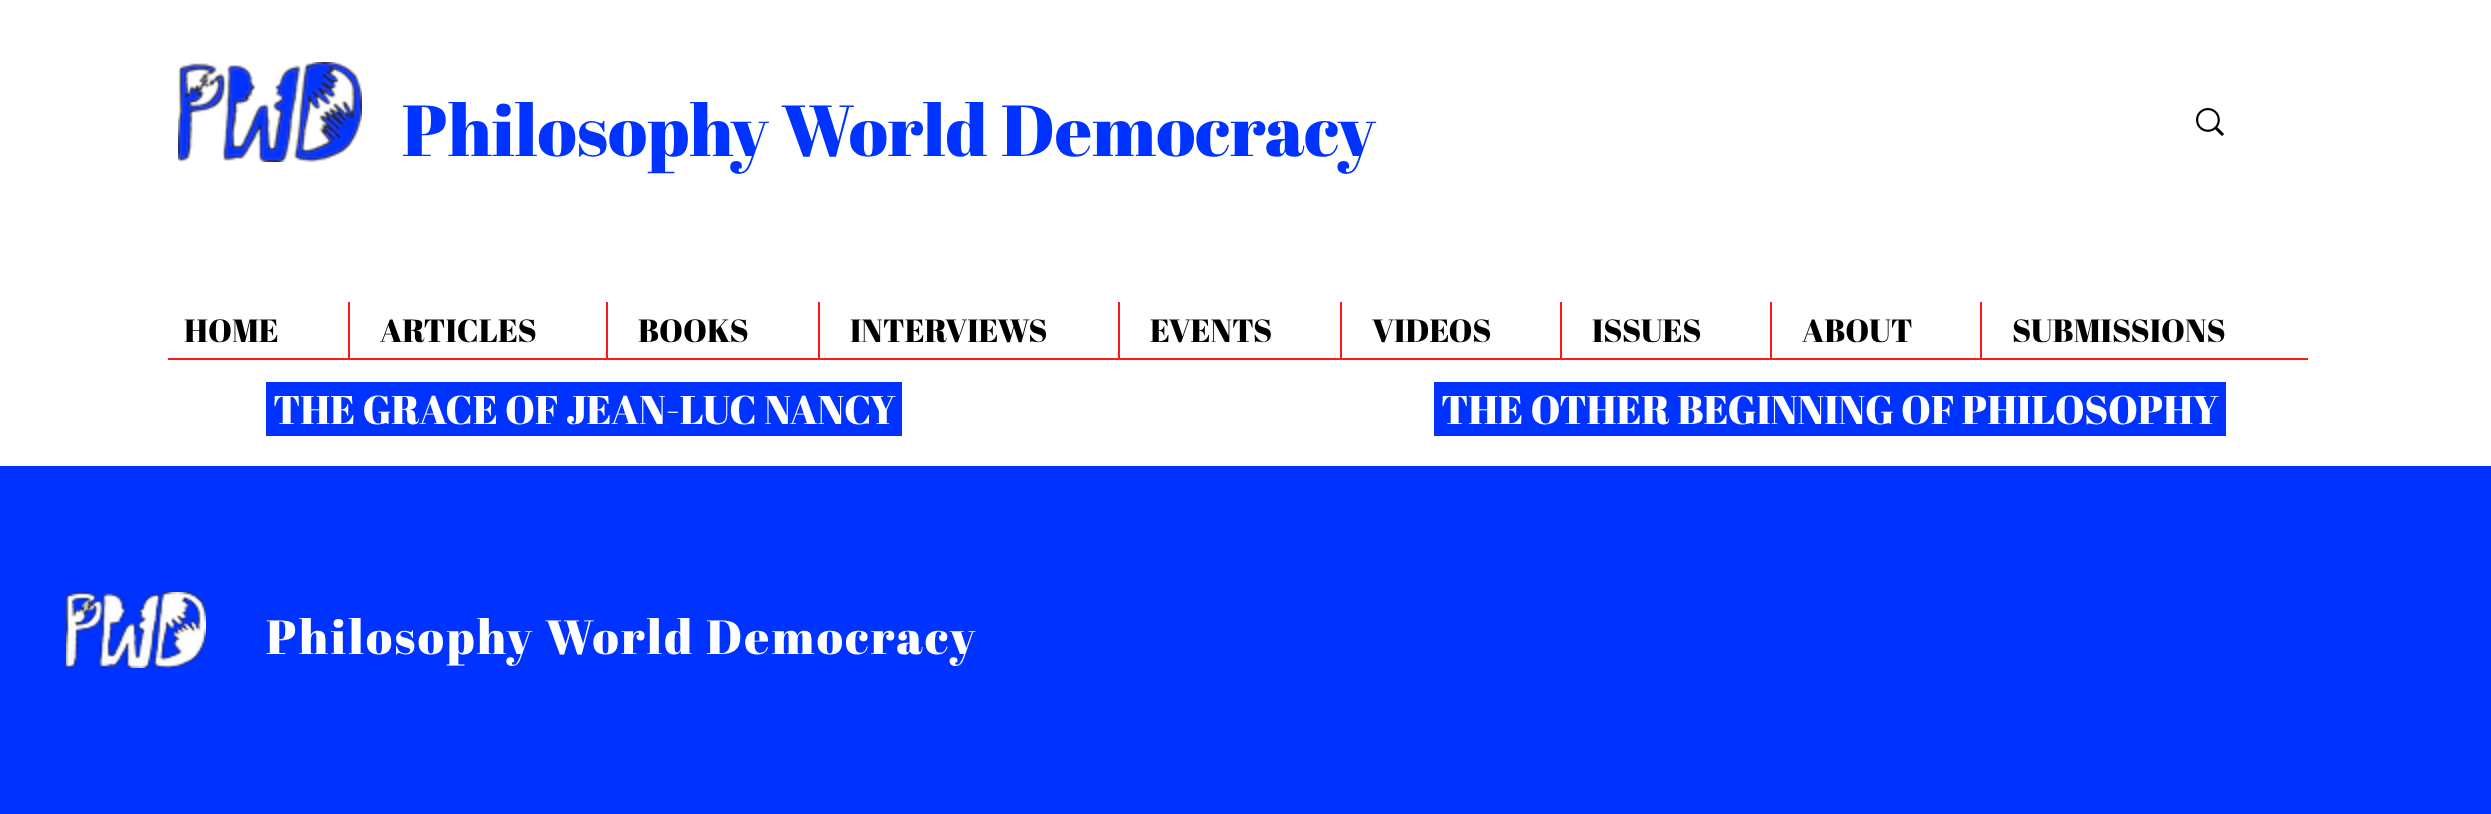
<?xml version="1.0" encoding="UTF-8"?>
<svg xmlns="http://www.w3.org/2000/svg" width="2491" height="814">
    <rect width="100%" height="100%" fill="#0033FF"/>
    <rect x="0" y="0" width="2491" height="466" fill="#FFFFFF"/>
    <image x="178" y="62" width="184" height="100" href="img_01.png"/>
    <text x="402" y="156" font-family="Abril Fatface" font-size="72" fill="#0033FF">Philosophy World Democracy</text>
    <image x="2196" y="108" width="28" height="28" href="img_02.png"/>
    <text x="184" y="342" font-family="Abril Fatface" font-size="32" fill="#000000">HOME</text>
    <rect x="348" y="302" width="2" height="58" fill="#FF1616"/>
    <text x="380" y="342" font-family="Abril Fatface" font-size="32" fill="#000000">ARTICLES</text>
    <rect x="606" y="302" width="2" height="58" fill="#FF1616"/>
    <text x="638" y="342" font-family="Abril Fatface" font-size="32" fill="#000000">BOOKS</text>
    <rect x="818" y="302" width="2" height="58" fill="#FF1616"/>
    <text x="850" y="342" font-family="Abril Fatface" font-size="32" fill="#000000">INTERVIEWS</text>
    <rect x="1118" y="302" width="2" height="58" fill="#FF1616"/>
    <text x="1150" y="342" font-family="Abril Fatface" font-size="32" fill="#000000">EVENTS</text>
    <rect x="1340" y="302" width="2" height="58" fill="#FF1616"/>
    <text x="1372" y="342" font-family="Abril Fatface" font-size="32" fill="#000000">VIDEOS</text>
    <rect x="1560" y="302" width="2" height="58" fill="#FF1616"/>
    <text x="1592" y="342" font-family="Abril Fatface" font-size="32" fill="#000000">ISSUES</text>
    <rect x="1770" y="302" width="2" height="58" fill="#FF1616"/>
    <text x="1802" y="342" font-family="Abril Fatface" font-size="32" fill="#000000">ABOUT</text>
    <rect x="1980" y="302" width="2" height="58" fill="#FF1616"/>
    <text x="2012" y="342" font-family="Abril Fatface" font-size="32" fill="#000000">SUBMISSIONS</text>
    <rect x="168" y="358" width="2140" height="2" fill="#FF1616"/>
    <rect x="266" y="382" width="636" height="54" fill="#0033FF"/>
    <text x="273" y="424" font-family="Abril Fatface" font-size="40" fill="#FFFFFF">THE GRACE OF JEAN-LUC NANCY</text>
    <rect x="1434" y="382" width="792" height="54" fill="#0033FF"/>
    <text x="1441" y="424" font-family="Abril Fatface" font-size="40" fill="#FFFFFF">THE OTHER BEGINNING OF PHILOSOPHY</text>
    <image x="66" y="592" width="140" height="76" href="img_03.png"/>
    <text x="266" y="654" font-family="Abril Fatface" font-size="48" letter-spacing="2.4" fill="#FFFFFF">Philosophy World Democracy</text>
</svg>
